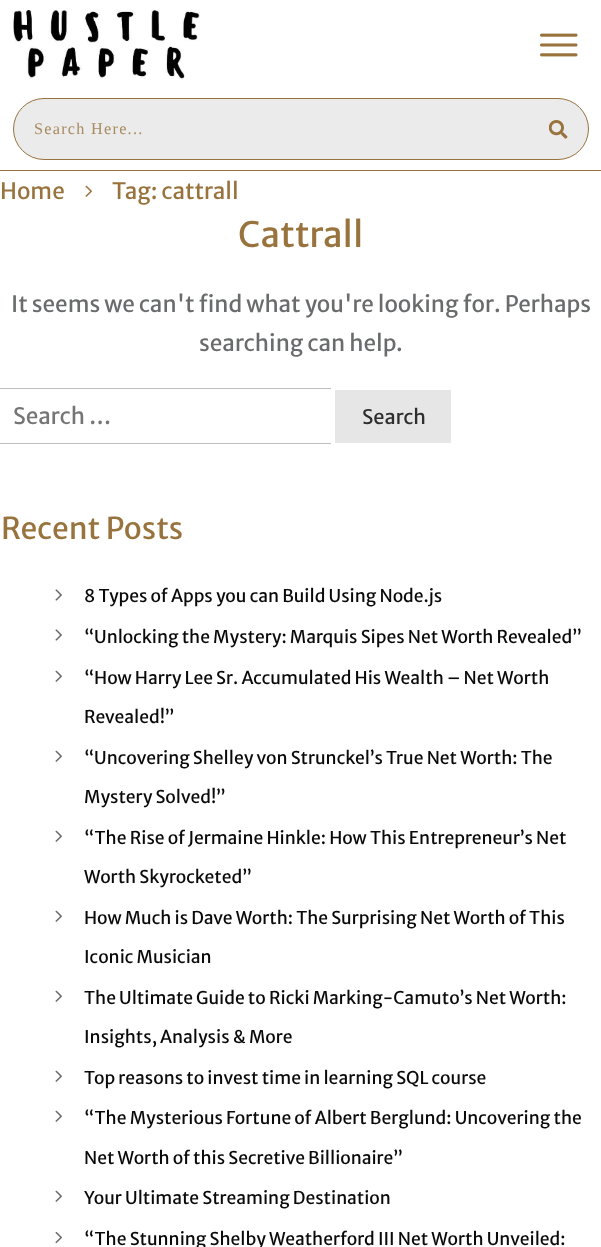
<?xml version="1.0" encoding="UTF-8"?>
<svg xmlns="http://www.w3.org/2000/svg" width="601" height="1247">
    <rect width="100%" height="100%" fill="#FFFFFF"/>
    <rect x="0" y="170" width="601" height="1" fill="#99733D"/>
    <image x="12" y="10" width="188" height="69" href="img_01.png"/>
    <image x="540" y="33" width="38" height="24" href="img_02.png"/>
    <rect x="13.5" y="98.5" width="575" height="61" rx="30.5" fill="#EBEBEB" stroke="#99733D"/>
    <text x="34" y="134" font-family="Liberation Serif" font-size="16.25" letter-spacing="1.25" fill="#A98B60">Search Here...</text>
    <image x="549" y="120" width="19" height="19" href="img_03.png"/>
    <text x="0" y="199" font-family="Merriweather Sans" font-size="22.5" fill="#99733D">Home</text>
    <image x="85" y="185" width="7" height="12" href="img_04.png"/>
    <text x="112" y="199" font-family="Merriweather Sans" font-size="22.5" fill="#99733D">Tag: cattrall</text>
    <text x="238" y="247" font-family="Merriweather Sans" font-size="35" fill="#99733D">Cattrall</text>
    <text x="11" y="312" font-family="Merriweather Sans" font-size="22.5" fill="#6A6B6C">It seems we can't find what you're looking for. Perhaps</text>
    <text x="199" y="351" font-family="Merriweather Sans" font-size="22.5" fill="#6A6B6C">searching can help.</text>
    <rect x="0" y="388" width="331" height="1" fill="#BFBFBF"/>
    <rect x="0" y="443" width="331" height="1" fill="#BFBFBF"/>
    <text x="13" y="424" font-family="Merriweather Sans" font-size="22.5" fill="#757575">Search …</text>
    <rect x="335" y="390" width="116" height="53" fill="#E6E6E6"/>
    <text x="362" y="424" font-family="Merriweather Sans" font-size="20" fill="#2E2E2E">Search</text>
    <text x="1" y="539" font-family="Merriweather Sans" font-size="30" fill="#99733D">Recent Posts</text>
    <image x="55" y="589" width="7" height="12" href="img_05.png"/>
    <text x="84" y="602" font-family="Merriweather Sans" font-size="17.5" fill="#0A0A0A">8 Types of Apps you can Build Using Node.js</text>
    <image x="55" y="629" width="7" height="12" href="img_05.png"/>
    <text x="84" y="643" font-family="Merriweather Sans" font-size="17.5" fill="#0A0A0A">“Unlocking the Mystery: Marquis Sipes Net Worth Revealed”</text>
    <image x="55" y="670" width="7" height="12" href="img_06.png"/>
    <text x="84" y="684" font-family="Merriweather Sans" font-size="17.5" fill="#0A0A0A">“How Harry Lee Sr. Accumulated His Wealth – Net Worth</text>
    <text x="84" y="723" font-family="Merriweather Sans" font-size="17.5" fill="#0A0A0A">Revealed!”</text>
    <image x="55" y="750" width="7" height="12" href="img_06.png"/>
    <text x="84" y="764" font-family="Merriweather Sans" font-size="17.5" fill="#0A0A0A">“Uncovering Shelley von Strunckel’s True Net Worth: The</text>
    <text x="84" y="803" font-family="Merriweather Sans" font-size="17.5" fill="#0A0A0A">Mystery Solved!”</text>
    <image x="55" y="830" width="7" height="12" href="img_06.png"/>
    <text x="84" y="844" font-family="Merriweather Sans" font-size="17.5" fill="#0A0A0A">“The Rise of Jermaine Hinkle: How This Entrepreneur’s Net</text>
    <text x="84" y="883" font-family="Merriweather Sans" font-size="17.5" fill="#0A0A0A">Worth Skyrocketed”</text>
    <image x="55" y="910" width="7" height="12" href="img_06.png"/>
    <text x="84" y="924" font-family="Merriweather Sans" font-size="17.5" fill="#0A0A0A">How Much is Dave Worth: The Surprising Net Worth of This</text>
    <text x="84" y="963" font-family="Merriweather Sans" font-size="17.5" fill="#0A0A0A">Iconic Musician</text>
    <image x="55" y="990" width="7" height="12" href="img_06.png"/>
    <text x="84" y="1004" font-family="Merriweather Sans" font-size="17.5" fill="#0A0A0A">The Ultimate Guide to Ricki Marking-Camuto’s Net Worth:</text>
    <text x="84" y="1043" font-family="Merriweather Sans" font-size="17.5" fill="#0A0A0A">Insights, Analysis &amp; More</text>
    <image x="55" y="1070" width="7" height="12" href="img_06.png"/>
    <text x="84" y="1084" font-family="Merriweather Sans" font-size="17.5" fill="#0A0A0A">Top reasons to invest time in learning SQL course</text>
    <image x="55" y="1110" width="7" height="12" href="img_06.png"/>
    <text x="84" y="1124" font-family="Merriweather Sans" font-size="17.5" fill="#0A0A0A">“The Mysterious Fortune of Albert Berglund: Uncovering the</text>
    <text x="84" y="1164" font-family="Merriweather Sans" font-size="17.5" fill="#0A0A0A">Net Worth of this Secretive Billionaire”</text>
    <image x="55" y="1190" width="7" height="12" href="img_06.png"/>
    <text x="84" y="1204" font-family="Merriweather Sans" font-size="17.5" fill="#0A0A0A">Your Ultimate Streaming Destination</text>
    <image x="55" y="1231" width="7" height="13" href="img_07.png"/>
    <text x="84" y="1245" font-family="Merriweather Sans" font-size="17.5" fill="#0A0A0A">“The Stunning Shelby Weatherford III Net Worth Unveiled:</text>
</svg>
